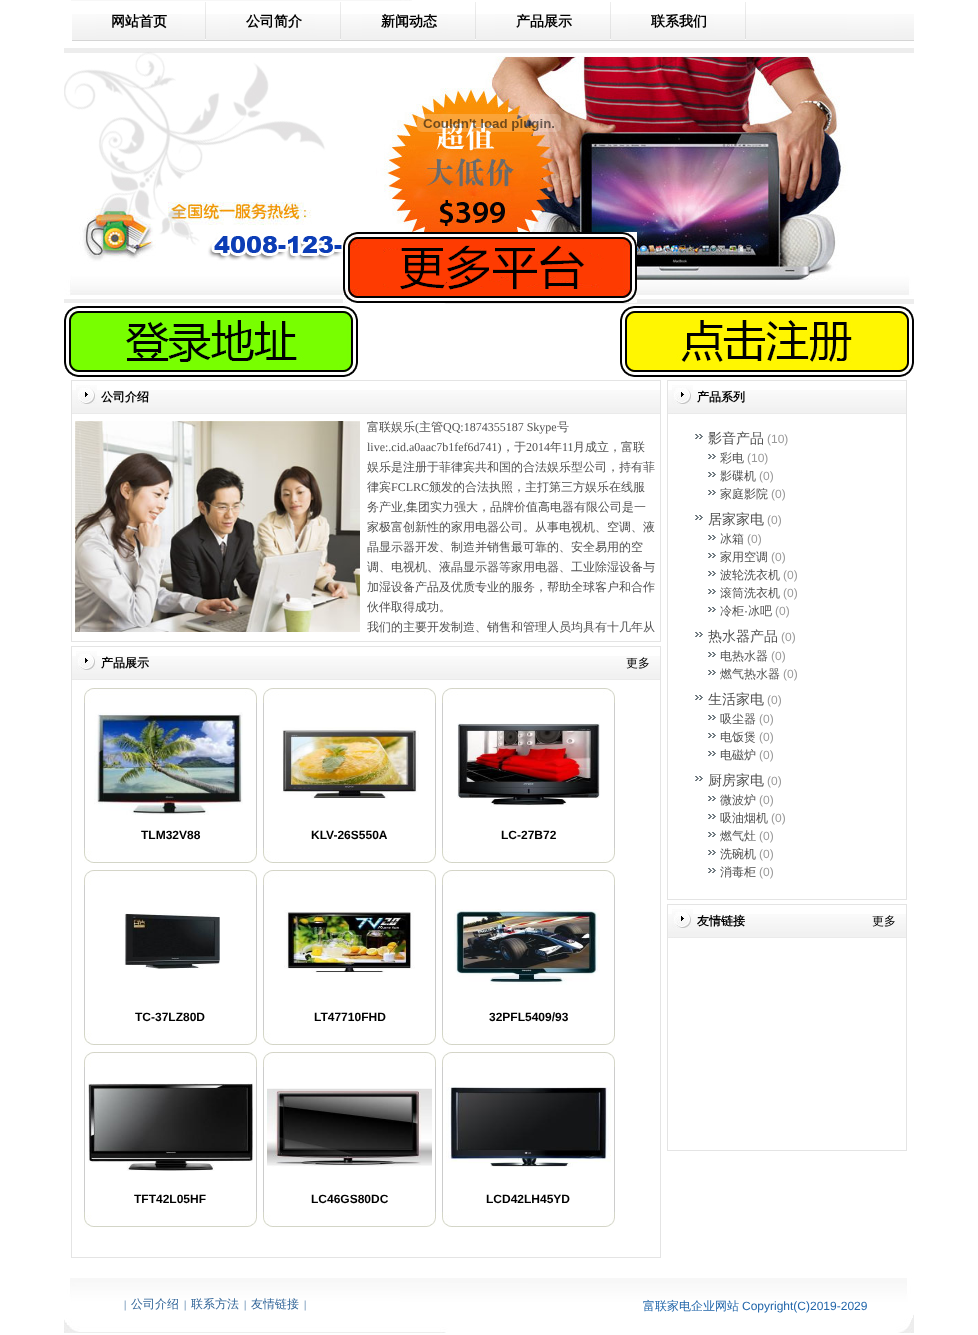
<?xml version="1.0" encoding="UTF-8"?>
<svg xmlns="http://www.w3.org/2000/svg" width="978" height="1335">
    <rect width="100%" height="100%" fill="#FFFFFF"/>
    <image x="71" y="0" width="341" height="1" href="img_01.png"/>
    <image x="72" y="14" width="842" height="27" href="img_02.png"/>
    <image x="205" y="2" width="1" height="38" href="img_03.png"/>
    <text x="111" y="26" font-family="WenQuanYi Zen Hei" font-size="14" font-weight="700" fill="#000000">网站首页</text>
    <image x="340" y="2" width="1" height="38" href="img_03.png"/>
    <text x="246" y="26" font-family="WenQuanYi Zen Hei" font-size="14" font-weight="700" fill="#000000">公司简介</text>
    <image x="475" y="2" width="1" height="38" href="img_03.png"/>
    <text x="381" y="26" font-family="WenQuanYi Zen Hei" font-size="14" font-weight="700" fill="#000000">新闻动态</text>
    <image x="610" y="2" width="1" height="38" href="img_03.png"/>
    <text x="516" y="26" font-family="WenQuanYi Zen Hei" font-size="14" font-weight="700" fill="#000000">产品展示</text>
    <image x="745" y="2" width="1" height="38" href="img_03.png"/>
    <text x="651" y="26" font-family="WenQuanYi Zen Hei" font-size="14" font-weight="700" fill="#000000">联系我们</text>
    <image x="64" y="48" width="850" height="256" href="img_04.png"/>
    <image x="417" y="114" width="144" height="18" href="img_05.png"/>
    <image x="343" y="232" width="294" height="71" href="img_06.png"/>
    <image x="64" y="306" width="294" height="71" href="img_07.png"/>
    <image x="620" y="306" width="294" height="71" href="img_08.png"/>
    <rect x="71.5" y="380.5" width="589" height="261" fill="none" stroke="#E4E4E4"/>
    <image x="72" y="390" width="588" height="24" href="img_09.png"/>
    <image x="76" y="385" width="21" height="19" href="img_10.png"/>
    <text x="101" y="401" font-family="WenQuanYi Zen Hei" font-size="12" font-weight="700" fill="#000000">公司介绍</text>
    <rect x="667.5" y="380.5" width="239" height="519" fill="none" stroke="#E4E4E4"/>
    <image x="668" y="390" width="238" height="24" href="img_11.png"/>
    <image x="672" y="385" width="21" height="19" href="img_10.png"/>
    <text x="697" y="401" font-family="WenQuanYi Zen Hei" font-size="12" font-weight="700" fill="#000000">产品系列</text>
    <image x="695" y="434" width="8" height="5" href="img_12.png"/>
    <text x="708" y="443" font-family="WenQuanYi Zen Hei" font-size="14" font-weight="500" fill="#505050">影音产品</text>
    <text x="767" y="443" font-family="Liberation Sans" font-size="12" fill="#999999">(10)</text>
    <image x="708" y="454" width="8" height="5" href="img_12.png"/>
    <text x="720" y="462" font-family="WenQuanYi Zen Hei" font-size="12" font-weight="500" fill="#505050">彩电</text>
    <text x="747" y="462" font-family="Liberation Sans" font-size="12" fill="#999999">(10)</text>
    <image x="708" y="472" width="8" height="5" href="img_12.png"/>
    <text x="720" y="480" font-family="WenQuanYi Zen Hei" font-size="12" font-weight="500" fill="#505050">影碟机</text>
    <text x="759" y="480" font-family="Liberation Sans" font-size="12" fill="#999999">(0)</text>
    <image x="708" y="490" width="8" height="5" href="img_12.png"/>
    <text x="720" y="498" font-family="WenQuanYi Zen Hei" font-size="12" font-weight="500" fill="#505050">家庭影院</text>
    <text x="771" y="498" font-family="Liberation Sans" font-size="12" fill="#999999">(0)</text>
    <image x="695" y="515" width="8" height="5" href="img_12.png"/>
    <text x="708" y="524" font-family="WenQuanYi Zen Hei" font-size="14" font-weight="500" fill="#505050">居家家电</text>
    <text x="767" y="524" font-family="Liberation Sans" font-size="12" fill="#999999">(0)</text>
    <image x="708" y="535" width="8" height="5" href="img_12.png"/>
    <text x="720" y="543" font-family="WenQuanYi Zen Hei" font-size="12" font-weight="500" fill="#505050">冰箱</text>
    <text x="747" y="543" font-family="Liberation Sans" font-size="12" fill="#999999">(0)</text>
    <image x="708" y="553" width="8" height="5" href="img_12.png"/>
    <text x="720" y="561" font-family="WenQuanYi Zen Hei" font-size="12" font-weight="500" fill="#505050">家用空调</text>
    <text x="771" y="561" font-family="Liberation Sans" font-size="12" fill="#999999">(0)</text>
    <image x="708" y="571" width="8" height="5" href="img_12.png"/>
    <text x="720" y="579" font-family="WenQuanYi Zen Hei" font-size="12" font-weight="500" fill="#505050">波轮洗衣机</text>
    <text x="783" y="579" font-family="Liberation Sans" font-size="12" fill="#999999">(0)</text>
    <image x="708" y="589" width="8" height="5" href="img_12.png"/>
    <text x="720" y="597" font-family="WenQuanYi Zen Hei" font-size="12" font-weight="500" fill="#505050">滚筒洗衣机</text>
    <text x="783" y="597" font-family="Liberation Sans" font-size="12" fill="#999999">(0)</text>
    <image x="708" y="607" width="8" height="5" href="img_12.png"/>
    <text x="720" y="615" font-family="WenQuanYi Zen Hei" font-size="12" font-weight="500" fill="#505050">冷柜</text>
    <text x="744" y="615" font-family="Liberation Sans" font-size="12" fill="#505050">·</text>
    <text x="748" y="615" font-family="WenQuanYi Zen Hei" font-size="12" font-weight="500" fill="#505050">冰吧</text>
    <text x="775" y="615" font-family="Liberation Sans" font-size="12" fill="#999999">(0)</text>
    <image x="695" y="632" width="8" height="5" href="img_12.png"/>
    <text x="708" y="641" font-family="WenQuanYi Zen Hei" font-size="14" font-weight="500" fill="#505050">热水器产品</text>
    <text x="781" y="641" font-family="Liberation Sans" font-size="12" fill="#999999">(0)</text>
    <image x="708" y="652" width="8" height="5" href="img_12.png"/>
    <text x="720" y="660" font-family="WenQuanYi Zen Hei" font-size="12" font-weight="500" fill="#505050">电热水器</text>
    <text x="771" y="660" font-family="Liberation Sans" font-size="12" fill="#999999">(0)</text>
    <image x="708" y="670" width="8" height="5" href="img_12.png"/>
    <text x="720" y="678" font-family="WenQuanYi Zen Hei" font-size="12" font-weight="500" fill="#505050">燃气热水器</text>
    <text x="783" y="678" font-family="Liberation Sans" font-size="12" fill="#999999">(0)</text>
    <image x="695" y="695" width="8" height="5" href="img_12.png"/>
    <text x="708" y="704" font-family="WenQuanYi Zen Hei" font-size="14" font-weight="500" fill="#505050">生活家电</text>
    <text x="767" y="704" font-family="Liberation Sans" font-size="12" fill="#999999">(0)</text>
    <image x="708" y="715" width="8" height="5" href="img_12.png"/>
    <text x="720" y="723" font-family="WenQuanYi Zen Hei" font-size="12" font-weight="500" fill="#505050">吸尘器</text>
    <text x="759" y="723" font-family="Liberation Sans" font-size="12" fill="#999999">(0)</text>
    <image x="708" y="733" width="8" height="5" href="img_12.png"/>
    <text x="720" y="741" font-family="WenQuanYi Zen Hei" font-size="12" font-weight="500" fill="#505050">电饭煲</text>
    <text x="759" y="741" font-family="Liberation Sans" font-size="12" fill="#999999">(0)</text>
    <image x="708" y="751" width="8" height="5" href="img_12.png"/>
    <text x="720" y="759" font-family="WenQuanYi Zen Hei" font-size="12" font-weight="500" fill="#505050">电磁炉</text>
    <text x="759" y="759" font-family="Liberation Sans" font-size="12" fill="#999999">(0)</text>
    <image x="695" y="776" width="8" height="5" href="img_12.png"/>
    <text x="708" y="785" font-family="WenQuanYi Zen Hei" font-size="14" font-weight="500" fill="#505050">厨房家电</text>
    <text x="767" y="785" font-family="Liberation Sans" font-size="12" fill="#999999">(0)</text>
    <image x="708" y="796" width="8" height="5" href="img_12.png"/>
    <text x="720" y="804" font-family="WenQuanYi Zen Hei" font-size="12" font-weight="500" fill="#505050">微波炉</text>
    <text x="759" y="804" font-family="Liberation Sans" font-size="12" fill="#999999">(0)</text>
    <image x="708" y="814" width="8" height="5" href="img_12.png"/>
    <text x="720" y="822" font-family="WenQuanYi Zen Hei" font-size="12" font-weight="500" fill="#505050">吸油烟机</text>
    <text x="771" y="822" font-family="Liberation Sans" font-size="12" fill="#999999">(0)</text>
    <image x="708" y="832" width="8" height="5" href="img_12.png"/>
    <text x="720" y="840" font-family="WenQuanYi Zen Hei" font-size="12" font-weight="500" fill="#505050">燃气灶</text>
    <text x="759" y="840" font-family="Liberation Sans" font-size="12" fill="#999999">(0)</text>
    <image x="708" y="850" width="8" height="5" href="img_12.png"/>
    <text x="720" y="858" font-family="WenQuanYi Zen Hei" font-size="12" font-weight="500" fill="#505050">洗碗机</text>
    <text x="759" y="858" font-family="Liberation Sans" font-size="12" fill="#999999">(0)</text>
    <image x="708" y="868" width="8" height="5" href="img_12.png"/>
    <text x="720" y="876" font-family="WenQuanYi Zen Hei" font-size="12" font-weight="500" fill="#505050">消毒柜</text>
    <text x="759" y="876" font-family="Liberation Sans" font-size="12" fill="#999999">(0)</text>
    <image x="75" y="421" width="285" height="211" href="img_13.png"/>
    <text x="367" y="431" font-family="WenQuanYi Zen Hei" font-size="12" font-weight="500" fill="#505050">富联娱乐</text>
    <text x="415" y="431" font-family="Liberation Serif" font-size="12" fill="#505050">(</text>
    <text x="419" y="431" font-family="WenQuanYi Zen Hei" font-size="12" font-weight="500" fill="#505050">主管</text>
    <text x="443" y="431" font-family="Liberation Serif" font-size="12" fill="#505050">QQ:1874355187 Skype</text>
    <text x="557" y="431" font-family="WenQuanYi Zen Hei" font-size="12" font-weight="500" fill="#505050">号</text>
    <text x="367" y="451" font-family="Liberation Serif" font-size="12" fill="#505050">live:.cid.a0aac7b1fef6d741)</text>
    <text x="502" y="451" font-family="WenQuanYi Zen Hei" font-size="12" font-weight="500" fill="#505050">，于</text>
    <text x="526" y="451" font-family="Liberation Serif" font-size="12" fill="#505050">2014</text>
    <text x="550" y="451" font-family="WenQuanYi Zen Hei" font-size="12" font-weight="500" fill="#505050">年</text>
    <text x="562" y="451" font-family="Liberation Serif" font-size="12" fill="#505050">11</text>
    <text x="573" y="451" font-family="WenQuanYi Zen Hei" font-size="12" font-weight="500" fill="#505050">月成立，富联</text>
    <text font-family="WenQuanYi Zen Hei" font-size="12" font-weight="500" fill="#505050">
        <tspan x="367" y="471">娱乐是注册于菲律宾共和国的合法娱乐型公司，持有菲</tspan>
        <tspan x="367" y="491">律宾</tspan>
    </text>
    <text x="391" y="491" font-family="Liberation Serif" font-size="12" fill="#505050">FCLRC</text>
    <text x="429" y="491" font-family="WenQuanYi Zen Hei" font-size="12" font-weight="500" fill="#505050">颁发的合法执照，主打第三方娱乐在线服</text>
    <text x="367" y="511" font-family="WenQuanYi Zen Hei" font-size="12" font-weight="500" fill="#505050">务产业</text>
    <text x="403" y="511" font-family="Liberation Serif" font-size="12" fill="#505050">,</text>
    <text x="406" y="511" font-family="WenQuanYi Zen Hei" font-size="12" font-weight="500" fill="#505050">集团实力强大，品牌价值高电器有限公司是一</text>
    <text font-family="WenQuanYi Zen Hei" font-size="12" font-weight="500" fill="#505050">
        <tspan x="367" y="531">家极富创新性的家用电器公司。从事电视机、空调、液</tspan>
        <tspan x="367" y="551">晶显示器开发、制造并销售最可靠的、安全易用的空</tspan>
        <tspan x="367" y="571">调、电视机、液晶显示器等家用电器、工业除湿设备与</tspan>
        <tspan x="367" y="591">加湿设备产品及优质专业的服务，帮助全球客户和合作</tspan>
        <tspan x="367" y="611">伙伴取得成功。</tspan>
        <tspan x="367" y="631">我们的主要开发制造、销售和管理人员均具有十几年从</tspan>
    </text>
    <rect x="71.5" y="646.5" width="589" height="611" fill="none" stroke="#E4E4E4"/>
    <image x="72" y="656" width="588" height="24" href="img_09.png"/>
    <image x="76" y="651" width="21" height="19" href="img_10.png"/>
    <text x="101" y="667" font-family="WenQuanYi Zen Hei" font-size="12" font-weight="700" fill="#000000">产品展示</text>
    <text x="626" y="667" font-family="WenQuanYi Zen Hei" font-size="12" font-weight="500" fill="#000000">更多</text>
    <image x="84" y="688" width="161" height="15" href="img_14.png"/>
    <image x="245" y="688" width="12" height="15" href="img_15.png"/>
    <rect x="256" y="703" width="1" height="145" fill="#CCCCCC"/>
    <rect x="84" y="703" width="1" height="145" fill="#CCCCCC"/>
    <image x="94" y="712" width="149" height="103" href="img_16.png"/>
    <text x="141" y="839" font-family="Liberation Sans" font-size="12" font-weight="700" fill="#000000">TLM32V88</text>
    <image x="84" y="848" width="161" height="15" href="img_17.png"/>
    <image x="245" y="848" width="12" height="15" href="img_18.png"/>
    <image x="263" y="688" width="161" height="15" href="img_14.png"/>
    <image x="424" y="688" width="12" height="15" href="img_15.png"/>
    <rect x="435" y="703" width="1" height="145" fill="#CCCCCC"/>
    <rect x="263" y="703" width="1" height="145" fill="#CCCCCC"/>
    <image x="282" y="727" width="137" height="72" href="img_19.png"/>
    <text x="311" y="839" font-family="Liberation Sans" font-size="12" font-weight="700" fill="#000000">KLV-26S550A</text>
    <image x="263" y="848" width="161" height="15" href="img_17.png"/>
    <image x="424" y="848" width="12" height="15" href="img_18.png"/>
    <image x="442" y="688" width="161" height="15" href="img_14.png"/>
    <image x="603" y="688" width="12" height="15" href="img_15.png"/>
    <rect x="614" y="703" width="1" height="145" fill="#CCCCCC"/>
    <rect x="442" y="703" width="1" height="145" fill="#CCCCCC"/>
    <image x="457" y="723" width="143" height="84" href="img_20.png"/>
    <text x="501" y="839" font-family="Liberation Sans" font-size="12" font-weight="700" fill="#000000">LC-27B72</text>
    <image x="442" y="848" width="161" height="15" href="img_17.png"/>
    <image x="603" y="848" width="12" height="15" href="img_18.png"/>
    <image x="84" y="870" width="161" height="15" href="img_14.png"/>
    <image x="245" y="870" width="12" height="15" href="img_15.png"/>
    <rect x="256" y="885" width="1" height="145" fill="#CCCCCC"/>
    <rect x="84" y="885" width="1" height="145" fill="#CCCCCC"/>
    <image x="124" y="913" width="96" height="56" href="img_21.png"/>
    <text x="135" y="1021" font-family="Liberation Sans" font-size="12" font-weight="700" fill="#000000">TC-37LZ80D</text>
    <image x="84" y="1030" width="161" height="15" href="img_17.png"/>
    <image x="245" y="1030" width="12" height="15" href="img_18.png"/>
    <image x="263" y="870" width="161" height="15" href="img_14.png"/>
    <image x="424" y="870" width="12" height="15" href="img_15.png"/>
    <rect x="435" y="885" width="1" height="145" fill="#CCCCCC"/>
    <rect x="263" y="885" width="1" height="145" fill="#CCCCCC"/>
    <image x="284" y="910" width="131" height="63" href="img_22.png"/>
    <text x="314" y="1021" font-family="Liberation Sans" font-size="12" font-weight="700" fill="#000000">LT47710FHD</text>
    <image x="263" y="1030" width="161" height="15" href="img_17.png"/>
    <image x="424" y="1030" width="12" height="15" href="img_18.png"/>
    <image x="442" y="870" width="161" height="15" href="img_14.png"/>
    <image x="603" y="870" width="12" height="15" href="img_15.png"/>
    <rect x="614" y="885" width="1" height="145" fill="#CCCCCC"/>
    <rect x="442" y="885" width="1" height="145" fill="#CCCCCC"/>
    <image x="454" y="909" width="146" height="76" href="img_23.png"/>
    <text x="489" y="1021" font-family="Liberation Sans" font-size="12" font-weight="700" fill="#000000">32PFL5409/93</text>
    <image x="442" y="1030" width="161" height="15" href="img_17.png"/>
    <image x="603" y="1030" width="12" height="15" href="img_18.png"/>
    <image x="84" y="1052" width="161" height="15" href="img_14.png"/>
    <image x="245" y="1052" width="12" height="15" href="img_15.png"/>
    <rect x="256" y="1067" width="1" height="145" fill="#CCCCCC"/>
    <rect x="84" y="1067" width="1" height="145" fill="#CCCCCC"/>
    <image x="88" y="1083" width="165" height="88" href="img_24.png"/>
    <text x="134" y="1203" font-family="Liberation Sans" font-size="12" font-weight="700" fill="#000000">TFT42L05HF</text>
    <image x="84" y="1212" width="161" height="15" href="img_17.png"/>
    <image x="245" y="1212" width="12" height="15" href="img_18.png"/>
    <image x="263" y="1052" width="161" height="15" href="img_14.png"/>
    <image x="424" y="1052" width="12" height="15" href="img_15.png"/>
    <rect x="435" y="1067" width="1" height="145" fill="#CCCCCC"/>
    <rect x="263" y="1067" width="1" height="145" fill="#CCCCCC"/>
    <image x="267" y="1088" width="165" height="79" href="img_25.png"/>
    <text x="311" y="1203" font-family="Liberation Sans" font-size="12" font-weight="700" fill="#000000">LC46GS80DC</text>
    <image x="263" y="1212" width="161" height="15" href="img_17.png"/>
    <image x="424" y="1212" width="12" height="15" href="img_18.png"/>
    <image x="442" y="1052" width="161" height="15" href="img_14.png"/>
    <image x="603" y="1052" width="12" height="15" href="img_15.png"/>
    <rect x="614" y="1067" width="1" height="145" fill="#CCCCCC"/>
    <rect x="442" y="1067" width="1" height="145" fill="#CCCCCC"/>
    <image x="446" y="1083" width="165" height="84" href="img_26.png"/>
    <text x="486" y="1203" font-family="Liberation Sans" font-size="12" font-weight="700" fill="#000000">LCD42LH45YD</text>
    <image x="442" y="1212" width="161" height="15" href="img_17.png"/>
    <image x="603" y="1212" width="12" height="15" href="img_18.png"/>
    <rect x="667.5" y="904.5" width="239" height="246" fill="none" stroke="#E4E4E4"/>
    <image x="668" y="914" width="238" height="24" href="img_11.png"/>
    <image x="672" y="909" width="21" height="19" href="img_10.png"/>
    <text x="697" y="925" font-family="WenQuanYi Zen Hei" font-size="12" font-weight="700" fill="#000000">友情链接</text>
    <text x="872" y="925" font-family="WenQuanYi Zen Hei" font-size="12" font-weight="500" fill="#000000">更多</text>
    <image x="64" y="1278" width="850" height="55" href="img_27.png"/>
    <text x="124" y="1308" font-family="Liberation Serif" font-size="11" fill="#336699">|</text>
    <text x="131" y="1308" font-family="WenQuanYi Zen Hei" font-size="12" font-weight="500" fill="#336699">公司介绍</text>
    <text x="184" y="1308" font-family="Liberation Serif" font-size="11" fill="#336699">|</text>
    <text x="191" y="1308" font-family="WenQuanYi Zen Hei" font-size="12" font-weight="500" fill="#336699">联系方法</text>
    <text x="244" y="1308" font-family="Liberation Serif" font-size="11" fill="#336699">|</text>
    <text x="251" y="1308" font-family="WenQuanYi Zen Hei" font-size="12" font-weight="500" fill="#336699">友情链接</text>
    <text x="304" y="1308" font-family="Liberation Serif" font-size="11" fill="#336699">|</text>
    <text x="643" y="1310" font-family="WenQuanYi Zen Hei" font-size="12" font-weight="500" fill="#2266AA">富联家电企业网站</text>
    <text x="742" y="1310" font-family="Liberation Sans" font-size="12" fill="#2266AA">Copyright(C)2019-2029</text>
</svg>
